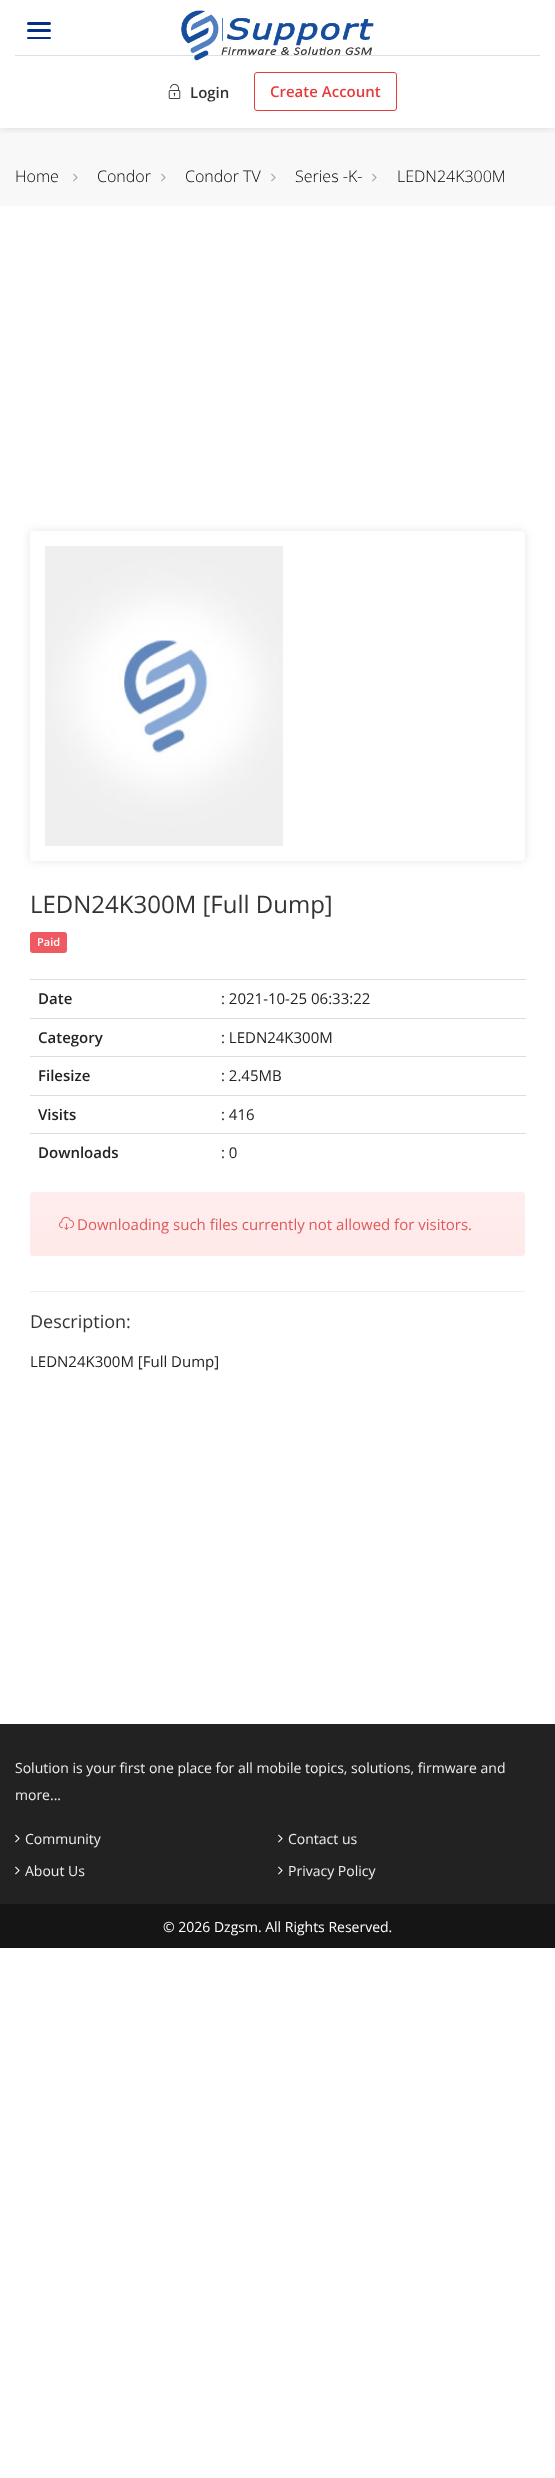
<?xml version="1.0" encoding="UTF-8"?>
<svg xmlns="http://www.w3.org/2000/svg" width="555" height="2478">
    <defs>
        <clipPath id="clip1"><rect x="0" y="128" width="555" height="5"/></clipPath>
        <filter id="blur1" x="-50%" y="-200%" width="200%" height="500%"><feGaussianBlur stdDeviation="5"/></filter>
        <linearGradient id="g1" gradientUnits="userSpaceOnUse" x1="278" y1="1192" x2="278" y2="1256"><stop offset="0" stop-color="#FFFFFF" stop-opacity="0.2"/><stop offset="1" stop-color="#FFFFFF" stop-opacity="0"/></linearGradient>
    </defs>
    <rect width="100%" height="100%" fill="#FFFFFF"/>
    <rect x="0" y="128" width="555" height="78" fill="#F8F8F8"/>
    <g clip-path="url(#clip1)">
        <rect x="0" y="0" width="555" height="128" fill="#000000" fill-opacity="0.12" filter="url(#blur1)"/>
    </g>
    <rect x="27" y="37" width="24" height="2" rx="1" fill="#013088"/>
    <rect x="27" y="22" width="24" height="3" rx="1.5" fill="#013088"/>
    <rect x="27" y="29" width="24" height="3" rx="1.5" fill="#013088"/>
    <rect x="15" y="55" width="525" height="1" fill="#E0E0E0"/>
    <image x="181" y="10" width="193" height="51" href="img_01.png"/>
    <image x="168" y="83" width="13" height="16" href="img_02.png"/>
    <text x="190" y="98" font-family="Open Sans" font-size="15" font-weight="600" fill="#333333">Login</text>
    <rect x="254.5" y="72.5" width="142" height="38" rx="2.5" fill="none" stroke="#E63B3B"/>
    <text x="270" y="97" font-family="Open Sans" font-size="15" font-weight="600" fill="#E63B3B">Create Account</text>
    <text x="15" y="182" font-family="Open Sans" font-size="16" font-weight="300" fill="#000000">Home</text>
    <image x="73" y="173" width="5" height="9" href="img_03.png"/>
    <text x="97" y="182" font-family="Open Sans" font-size="16" font-weight="300" fill="#000000">Condor</text>
    <image x="161" y="173" width="5" height="9" href="img_03.png"/>
    <text x="185" y="182" font-family="Open Sans" font-size="16" font-weight="300" fill="#000000">Condor TV</text>
    <image x="271" y="173" width="5" height="9" href="img_03.png"/>
    <text x="295" y="182" font-family="Open Sans" font-size="16" font-weight="300" fill="#000000">Series -K-</text>
    <image x="372" y="173" width="5" height="9" href="img_03.png"/>
    <text x="397" y="182" font-family="Open Sans" font-size="16" font-weight="300" fill="#000000">LEDN24K300M</text>
    <rect x="30" y="531" width="495" height="330" rx="4" fill="#000000" fill-opacity="0.1" filter="url(#blur1)"/>
    <rect x="30" y="531" width="495" height="330" rx="4" fill="#FFFFFF"/>
    <image x="45" y="546" width="238" height="300" href="img_04.png"/>
    <text x="30" y="913" font-family="Open Sans" font-size="24" fill="#333333">LEDN24K300M [Full Dump]</text>
    <rect x="30" y="932" width="37" height="21" rx="3" fill="#EF5A62"/>
    <text x="37" y="946" font-family="Open Sans" font-size="11" font-weight="600" fill="#FFFFFF">Paid</text>
    <text x="38" y="1004" font-family="Open Sans" font-size="15" font-weight="600" fill="#222222">Date</text>
    <rect x="30" y="979" width="496" height="1" fill="#DDDDDD"/>
    <text x="221" y="1004" font-family="Open Sans" font-size="15" fill="#222222">: 2021-10-25 06:33:22</text>
    <text x="38" y="1043" font-family="Open Sans" font-size="15" font-weight="600" fill="#222222">Category</text>
    <rect x="30" y="1018" width="496" height="1" fill="#DDDDDD"/>
    <text x="221" y="1043" font-family="Open Sans" font-size="15" fill="#222222">: LEDN24K300M</text>
    <text x="38" y="1081" font-family="Open Sans" font-size="15" font-weight="600" fill="#222222">Filesize</text>
    <rect x="30" y="1056" width="496" height="1" fill="#DDDDDD"/>
    <text x="221" y="1081" font-family="Open Sans" font-size="15" fill="#222222">: 2.45MB</text>
    <text x="38" y="1120" font-family="Open Sans" font-size="15" font-weight="600" fill="#222222">Visits</text>
    <rect x="30" y="1095" width="496" height="1" fill="#DDDDDD"/>
    <text x="221" y="1120" font-family="Open Sans" font-size="15" fill="#222222">: 416</text>
    <text x="38" y="1158" font-family="Open Sans" font-size="15" font-weight="600" fill="#222222">Downloads</text>
    <rect x="30" y="1133" width="496" height="1" fill="#DDDDDD"/>
    <text x="221" y="1158" font-family="Open Sans" font-size="15" fill="#222222">: 0</text>
    <rect x="30" y="1192" width="495" height="64" rx="3" fill="#FFE9E9"/>
    <rect x="30" y="1192" width="495" height="64" rx="3" fill="url(#g1)"/>
    <image x="59" y="1216" width="15" height="14" href="img_05.png"/>
    <text x="77" y="1230" font-family="Open Sans" font-size="15" fill="#DE5959">Downloading such files currently not allowed for visitors.</text>
    <rect x="30" y="1291" width="495" height="1" fill="#EEEEEE"/>
    <text x="30" y="1328" font-family="Open Sans" font-size="18" fill="#333333">Description:</text>
    <text x="30" y="1367" font-family="Open Sans" font-size="15" fill="#222222">LEDN24K300M [Full Dump]</text>
    <rect x="0" y="1724" width="555" height="180" fill="#222222"/>
    <text font-family="Open Sans" font-size="14" fill="#EEEEEE">
        <tspan x="15" y="1773">Solution is your first one place for all mobile topics, solutions, firmware and</tspan>
        <tspan x="15" y="1800">more...</tspan>
    </text>
    <image x="15" y="1834" width="5" height="9" href="img_06.png"/>
    <text x="25" y="1844" font-family="Open Sans" font-size="14" fill="#EEEEEE">Community</text>
    <image x="15" y="1866" width="5" height="9" href="img_06.png"/>
    <text x="25" y="1876" font-family="Open Sans" font-size="14" fill="#EEEEEE">About Us</text>
    <image x="278" y="1834" width="5" height="9" href="img_06.png"/>
    <text x="288" y="1844" font-family="Open Sans" font-size="14" fill="#EEEEEE">Contact us</text>
    <image x="278" y="1866" width="5" height="9" href="img_06.png"/>
    <text x="288" y="1876" font-family="Open Sans" font-size="14" fill="#EEEEEE">Privacy Policy</text>
    <rect x="0" y="1905" width="555" height="43" fill="#151515"/>
    <rect x="0" y="1904" width="555" height="1" fill="#131313"/>
    <text x="163" y="1932" font-family="Open Sans" font-size="14" fill="#FFFFFF">© 2026 Dzgsm. All Rights Reserved.</text>
</svg>
